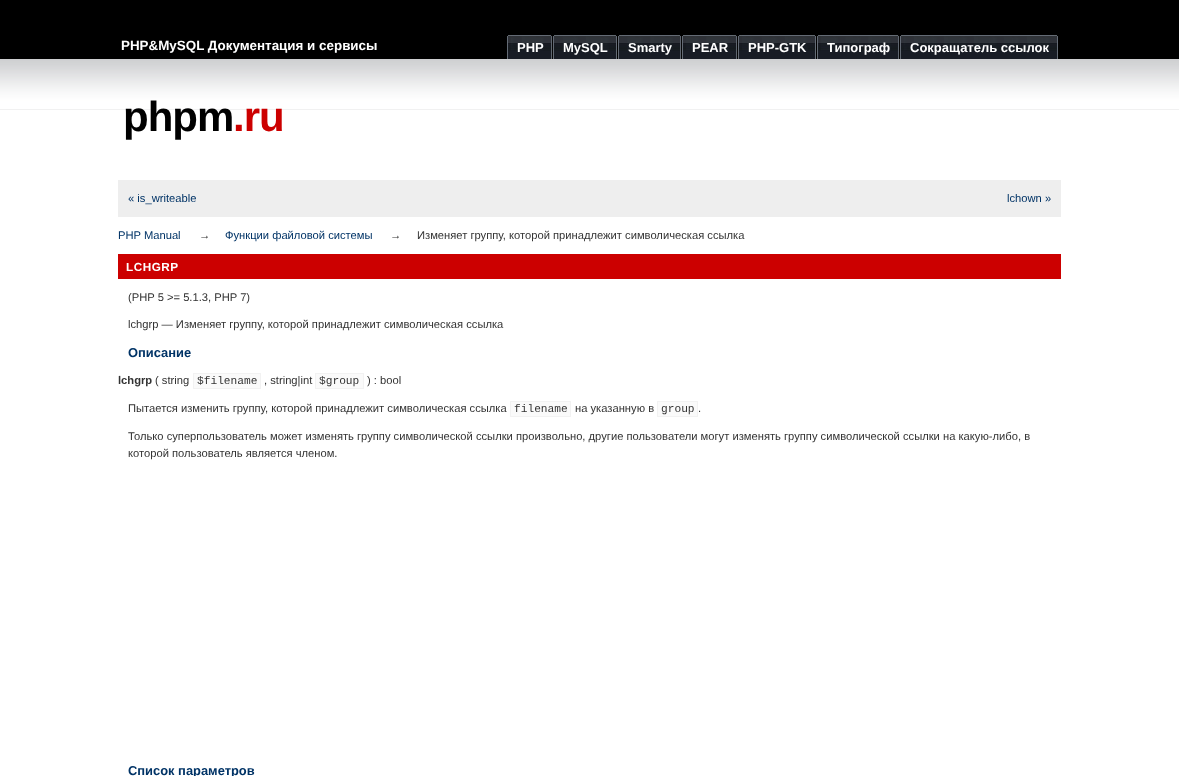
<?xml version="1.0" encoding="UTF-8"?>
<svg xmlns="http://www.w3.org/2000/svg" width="1179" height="776">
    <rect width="100%" height="100%" fill="#FFFFFF"/>
    <image x="0" y="0" width="1179" height="110" href="img_01.png"/>
    <text x="121" y="50" font-family="Liberation Sans" font-size="13.4" font-weight="700" fill="#FFFFFF">PHP&amp;MySQL Документация и сервисы</text>
    <image x="507" y="35" width="4" height="24" href="img_02.png"/>
    <image x="511" y="35" width="42" height="24" href="img_03.png"/>
    <text x="517" y="52" font-family="Liberation Sans" font-size="13" font-weight="700" fill="#FFFFFF">PHP</text>
    <image x="553" y="35" width="4" height="24" href="img_02.png"/>
    <image x="557" y="35" width="60" height="24" href="img_04.png"/>
    <text x="563" y="52" font-family="Liberation Sans" font-size="13" font-weight="700" fill="#FFFFFF">MySQL</text>
    <image x="618" y="35" width="4" height="24" href="img_02.png"/>
    <image x="622" y="35" width="60" height="24" href="img_05.png"/>
    <text x="628" y="52" font-family="Liberation Sans" font-size="13" font-weight="700" fill="#FFFFFF">Smarty</text>
    <image x="682" y="35" width="4" height="24" href="img_02.png"/>
    <image x="686" y="35" width="52" height="24" href="img_06.png"/>
    <text x="692" y="52" font-family="Liberation Sans" font-size="13" font-weight="700" fill="#FFFFFF">PEAR</text>
    <image x="738" y="35" width="4" height="24" href="img_02.png"/>
    <image x="742" y="35" width="74" height="24" href="img_07.png"/>
    <text x="748" y="52" font-family="Liberation Sans" font-size="13" font-weight="700" fill="#FFFFFF">PHP-GTK</text>
    <image x="817" y="35" width="4" height="24" href="img_02.png"/>
    <image x="821" y="35" width="79" height="24" href="img_08.png"/>
    <text x="827" y="52" font-family="Liberation Sans" font-size="13" font-weight="700" fill="#FFFFFF">Типограф</text>
    <image x="900" y="35" width="4" height="24" href="img_02.png"/>
    <image x="904" y="35" width="154" height="24" href="img_09.png"/>
    <text x="910" y="52" font-family="Liberation Sans" font-size="13" font-weight="700" fill="#FFFFFF">Сокращатель ссылок</text>
    <text x="123" y="131" font-family="Liberation Sans" font-size="42" font-weight="700" letter-spacing="-1" fill="#000000">phpm</text>
    <text x="233" y="131" font-family="Liberation Sans" font-size="42" font-weight="700" letter-spacing="-1" fill="#CC0000">.ru</text>
    <rect x="118" y="180" width="943" height="37" fill="#EEEEEE"/>
    <text x="128" y="202" font-family="Liberation Sans" font-size="11.2" fill="#003366">« is_writeable</text>
    <text x="1007" y="202" font-family="Liberation Sans" font-size="11.2" fill="#003366">lchown »</text>
    <text x="118" y="239" font-family="Liberation Sans" font-size="11.2" fill="#003366">PHP Manual</text>
    <text x="199" y="239" font-family="Liberation Sans" font-size="11.2" fill="#333333">→</text>
    <text x="225" y="239" font-family="Liberation Sans" font-size="11.2" fill="#003366">Функции файловой системы</text>
    <text x="390" y="239" font-family="Liberation Sans" font-size="11.2" fill="#333333">→</text>
    <text x="417" y="239" font-family="Liberation Sans" font-size="11.2" fill="#333333">Изменяет группу, которой принадлежит символическая ссылка</text>
    <rect x="118" y="254" width="943" height="25" fill="#CC0000"/>
    <text x="126" y="271" font-family="Liberation Sans" font-size="11.75" font-weight="700" letter-spacing="0.5" fill="#FFFFFF">LCHGRP</text>
    <text x="128" y="301" font-family="Liberation Sans" font-size="11.2" fill="#333333">(PHP 5 &gt;= 5.1.3, PHP 7)</text>
    <text x="128" y="328" font-family="Liberation Sans" font-size="11.2" fill="#333333">lchgrp — Изменяет группу, которой принадлежит символическая ссылка</text>
    <text x="128" y="357" font-family="Liberation Sans" font-size="12.9" font-weight="700" fill="#003366">Описание</text>
    <text x="118" y="384" font-family="Liberation Sans" font-size="11.2" font-weight="700" fill="#333333">lchgrp</text>
    <text x="155" y="384" font-family="Liberation Sans" font-size="11.2" fill="#333333">( string</text>
    <rect x="193.5" y="373.5" width="67" height="15" fill="#FAFAFA" stroke="#F2F2F2"/>
    <text x="197" y="384" font-family="Liberation Mono" font-size="11.2" fill="#333333">$filename</text>
    <text x="264" y="384" font-family="Liberation Sans" font-size="11.2" fill="#333333">, string|int</text>
    <rect x="315.5" y="373.5" width="48" height="15" fill="#FAFAFA" stroke="#F2F2F2"/>
    <text x="319" y="384" font-family="Liberation Mono" font-size="11.2" fill="#333333">$group</text>
    <text x="367" y="384" font-family="Liberation Sans" font-size="11.2" fill="#333333">) : bool</text>
    <text x="128" y="412" font-family="Liberation Sans" font-size="11.2" fill="#333333">Пытается изменить группу, которой принадлежит символическая ссылка</text>
    <rect x="510.5" y="401.5" width="60" height="15" fill="#FAFAFA" stroke="#F2F2F2"/>
    <text x="514" y="412" font-family="Liberation Mono" font-size="11.2" fill="#333333">filename</text>
    <text x="575" y="412" font-family="Liberation Sans" font-size="11.2" fill="#333333">на указанную в</text>
    <rect x="657.5" y="401.5" width="40" height="15" fill="#FAFAFA" stroke="#F2F2F2"/>
    <text x="661" y="412" font-family="Liberation Mono" font-size="11.2" fill="#333333">group</text>
    <text x="698" y="412" font-family="Liberation Sans" font-size="11.2" fill="#333333">.</text>
    <text font-family="Liberation Sans" font-size="11.2" fill="#333333">
        <tspan x="128" y="440">Только суперпользователь может изменять группу символической ссылки произвольно, другие пользователи могут изменять группу символической ссылки на какую-либо, в</tspan>
        <tspan x="128" y="457">которой пользователь является членом.</tspan>
    </text>
    <text x="128" y="775" font-family="Liberation Sans" font-size="12.9" font-weight="700" fill="#003366">Список параметров</text>
</svg>
